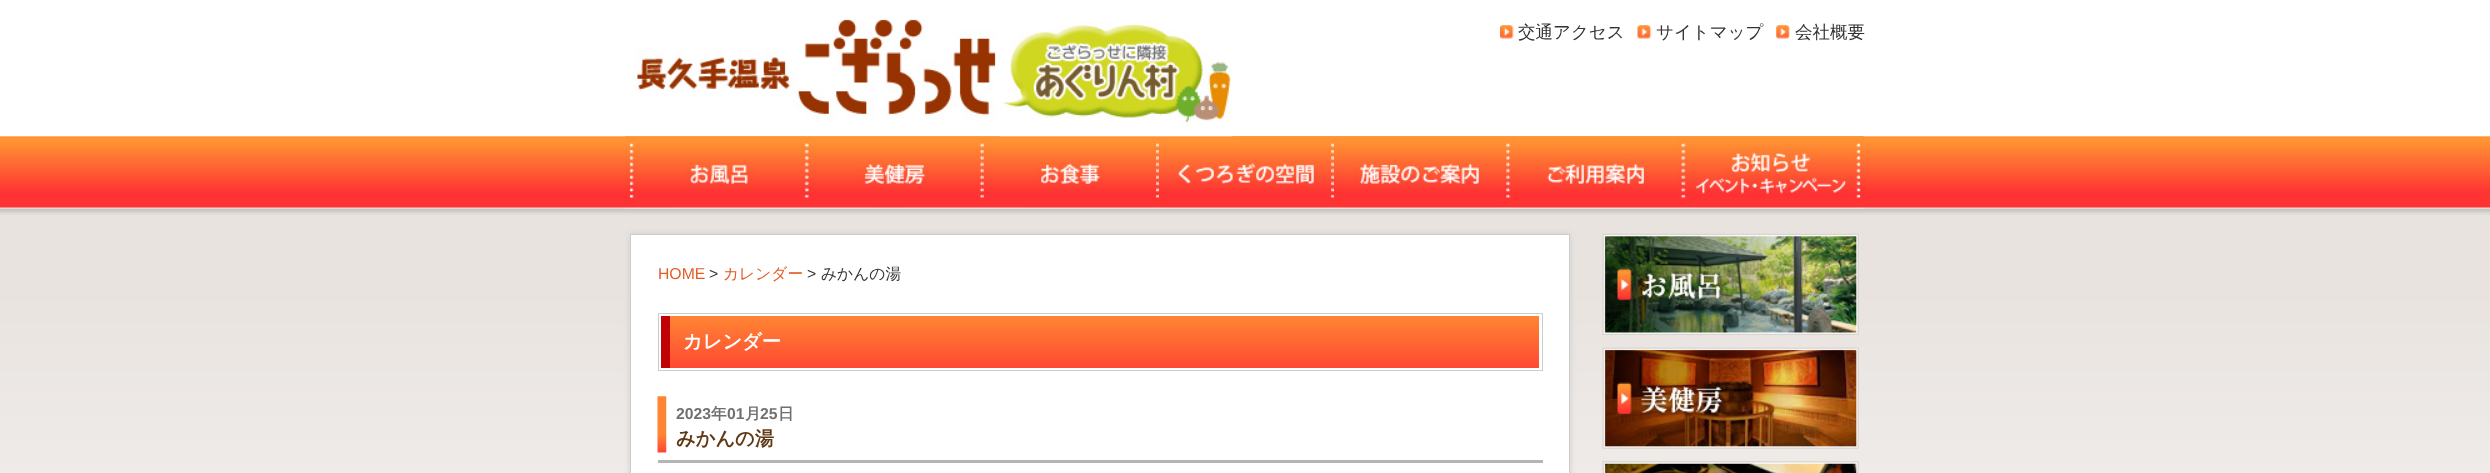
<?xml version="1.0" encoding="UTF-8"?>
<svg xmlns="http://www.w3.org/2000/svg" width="2490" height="473">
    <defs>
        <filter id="blur1" x="-50%" y="-200%" width="200%" height="500%"><feGaussianBlur stdDeviation="3"/></filter>
        <linearGradient id="g1" gradientUnits="userSpaceOnUse" x1="1104" y1="316" x2="1104" y2="368"><stop offset="0" stop-color="#FF8633"/><stop offset="1" stop-color="#FF4833"/></linearGradient>
    </defs>
    <rect width="100%" height="100%" fill="#FFFFFF"/>
    <image x="0" y="136" width="2490" height="337" href="img_01.png"/>
    <image x="625" y="19" width="375" height="118" href="img_02.png"/>
    <image x="625" y="136" width="182" height="73" href="img_07.png"/>
    <image x="806" y="136" width="177" height="73" href="img_08.png"/>
    <image x="982" y="136" width="176" height="73" href="img_09.png"/>
    <image x="1157" y="136" width="176" height="73" href="img_10.png"/>
    <image x="1000" y="21" width="233" height="116" href="img_03.png"/>
    <image x="1500" y="25" width="14" height="14" href="img_04.png"/>
    <text x="1518" y="38" font-family="WenQuanYi Zen Hei" font-size="17.5" font-weight="500" fill="#333333">交通アクセス</text>
    <image x="1637" y="25" width="15" height="14" href="img_05.png"/>
    <text x="1656" y="38" font-family="WenQuanYi Zen Hei" font-size="17.5" font-weight="500" fill="#333333">サイトマップ</text>
    <image x="1776" y="25" width="14" height="14" href="img_06.png"/>
    <text x="1795" y="38" font-family="WenQuanYi Zen Hei" font-size="17.5" font-weight="500" fill="#333333">会社概要</text>
    <image x="1332" y="136" width="176" height="73" href="img_11.png"/>
    <image x="1507" y="136" width="177" height="73" href="img_12.png"/>
    <image x="1683" y="136" width="181" height="73" href="img_13.png"/>
    <rect x="630" y="234" width="940" height="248" fill="#CCCCCC" filter="url(#blur1)"/>
    <rect x="630.5" y="234.5" width="939" height="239" fill="#FFFFFF" stroke="#CCCCCC"/>
    <text x="658" y="279" font-family="Liberation Sans" font-size="15.75" fill="#E35A24">HOME</text>
    <text x="709" y="279" font-family="Liberation Sans" font-size="15.75" fill="#333333">&gt;</text>
    <text x="723" y="279" font-family="WenQuanYi Zen Hei" font-size="15.75" font-weight="500" fill="#E35A24">カレンダー</text>
    <text x="807" y="279" font-family="Liberation Sans" font-size="15.75" fill="#333333">&gt;</text>
    <text x="821" y="279" font-family="WenQuanYi Zen Hei" font-size="15.75" font-weight="500" fill="#333333">みかんの湯</text>
    <rect x="658.5" y="313.5" width="884" height="57" fill="none" stroke="#CCCCCC"/>
    <rect x="670" y="316" width="869" height="52" fill="url(#g1)"/>
    <rect x="661" y="316" width="9" height="52" fill="#C00302"/>
    <text x="683" y="348" font-family="WenQuanYi Zen Hei" font-size="19.25" font-weight="700" fill="#FFFFFF">カレンダー</text>
    <rect x="658" y="460" width="885" height="3" fill="#B5B5B5"/>
    <image x="657" y="396" width="10" height="57" href="img_14.png"/>
    <text x="676" y="419" font-family="Liberation Sans" font-size="15.75" font-weight="700" fill="#707070">2023</text>
    <text x="711" y="419" font-family="WenQuanYi Zen Hei" font-size="15.75" font-weight="700" fill="#707070">年</text>
    <text x="727" y="419" font-family="Liberation Sans" font-size="15.75" font-weight="700" fill="#707070">01</text>
    <text x="745" y="419" font-family="WenQuanYi Zen Hei" font-size="15.75" font-weight="700" fill="#707070">月</text>
    <text x="760" y="419" font-family="Liberation Sans" font-size="15.75" font-weight="700" fill="#707070">25</text>
    <text x="778" y="419" font-family="WenQuanYi Zen Hei" font-size="15.75" font-weight="700" fill="#707070">日</text>
    <text x="676" y="445" font-family="WenQuanYi Zen Hei" font-size="19.25" font-weight="700" fill="#603813">みかんの湯</text>
    <image x="1602" y="233" width="257" height="102" href="img_15.png"/>
    <image x="1602" y="347" width="257" height="102" href="img_16.png"/>
    <image x="1602" y="461" width="257" height="12" href="img_17.png"/>
</svg>
